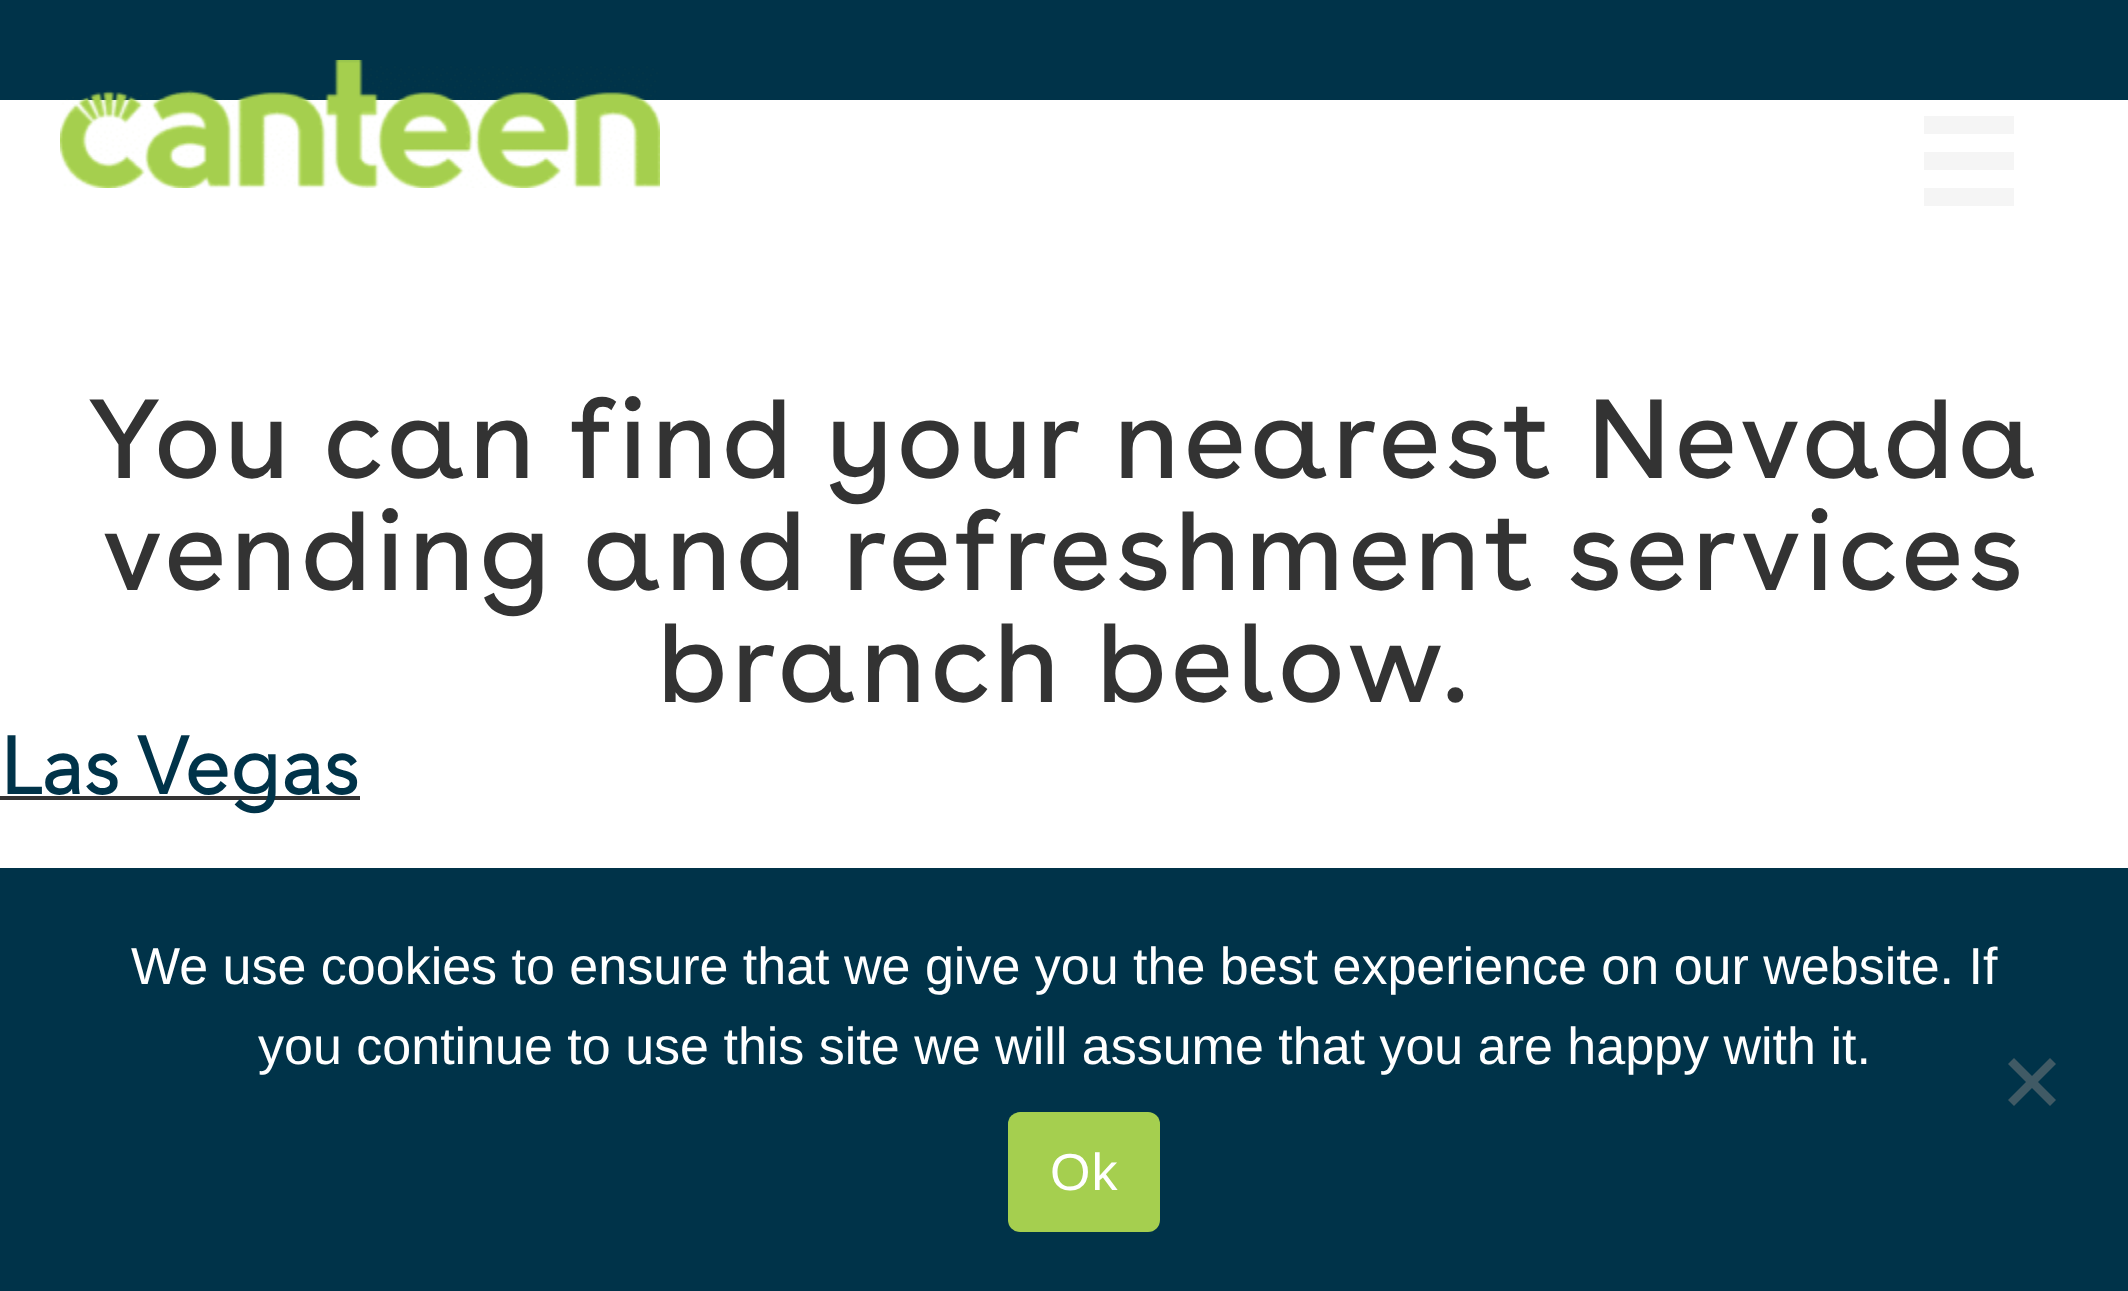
<?xml version="1.0" encoding="UTF-8"?>
<svg xmlns="http://www.w3.org/2000/svg" width="2128" height="1291">
    <rect width="100%" height="100%" fill="#003349"/>
    <rect x="0" y="100" width="2128" height="768" fill="#FFFFFF"/>
    <image x="60" y="60" width="600" height="128" href="img_01.png"/>
    <rect x="1924" y="116" width="90" height="18" fill="#F5F5F5"/>
    <rect x="1924" y="152" width="90" height="18" fill="#F5F5F5"/>
    <rect x="1924" y="188" width="90" height="18" fill="#F5F5F5"/>
    <text x="88" y="478" font-family="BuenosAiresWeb" font-size="112" letter-spacing="4" fill="#333333">You can find your nearest Nevada</text>
    <text x="102" y="590" font-family="BuenosAiresWeb" font-size="112" letter-spacing="4" fill="#333333">vending and refreshment services</text>
    <text x="657" y="702" font-family="BuenosAiresWeb" font-size="112" letter-spacing="4" fill="#333333">branch below.</text>
    <rect x="0" y="796" width="360" height="4" fill="#333333"/>
    <text x="0" y="794" font-family="Avenir Next" font-size="80" font-weight="700" fill="#003349">Las Vegas</text>
    <text x="131" y="984" font-family="Liberation Sans" font-size="52" fill="#FFFFFF">We use cookies to ensure that we give you the best experience on our website. If</text>
    <text x="258" y="1064" font-family="Liberation Sans" font-size="52" fill="#FFFFFF">you continue to use this site we will assume that you are happy with it.</text>
    <path d="M 2050 1058 L 2056 1064 L 2014 1106 L 2008 1100 Z" fill="#405A65"/>
    <path d="M 2008 1064 L 2014 1058 L 2056 1100 L 2050 1106 Z" fill="#405A65"/>
    <rect x="1008" y="1112" width="152" height="120" rx="12" fill="#A5CF4F"/>
    <text x="1050" y="1190" font-family="Liberation Sans" font-size="52" letter-spacing="1" fill="#FFFFFF">Ok</text>
</svg>
